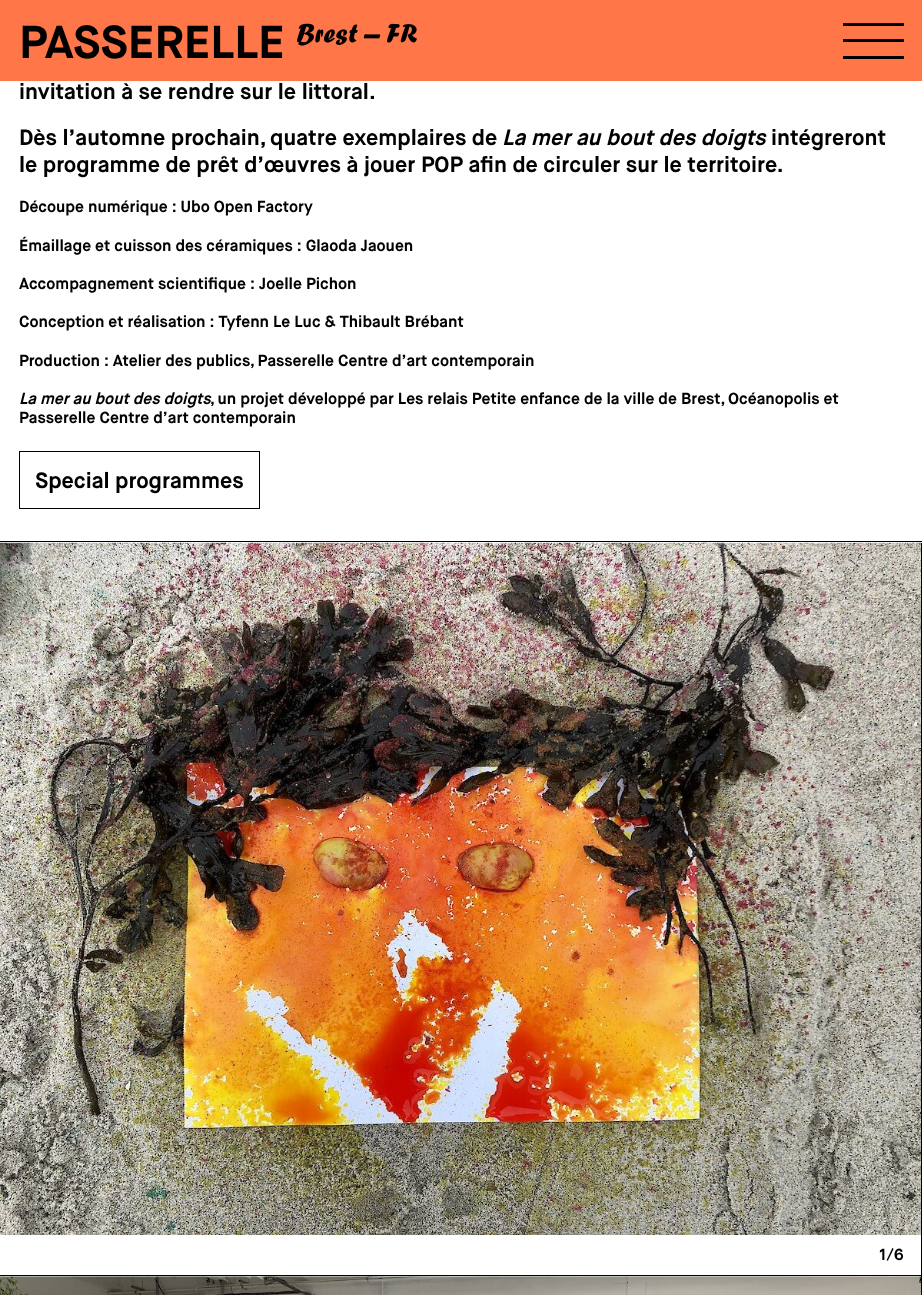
<?xml version="1.0" encoding="UTF-8"?>
<svg xmlns="http://www.w3.org/2000/svg" width="922" height="1295">
    <rect width="100%" height="100%" fill="#FFFFFF"/>
    <rect x="0" y="0" width="922" height="81" fill="#FF7648"/>
    <text x="19" y="58" font-family="Maison Neue" font-size="46" font-weight="700" fill="#000000">PASSERELLE</text>
    <image x="297" y="23" width="120" height="23" href="img_01.png"/>
    <rect x="843" y="23" width="61" height="3" fill="#000000"/>
    <rect x="843" y="39" width="61" height="3" fill="#000000"/>
    <rect x="843" y="56" width="61" height="3" fill="#000000"/>
    <text x="19" y="99" font-family="Maison Neue" font-size="22" font-weight="700" fill="#000000">invitation à se rendre sur le littoral.</text>
    <text x="19" y="145" font-family="Maison Neue" font-size="22" font-weight="700" fill="#000000">Dès l’automne prochain, quatre exemplaires de</text>
    <text x="502" y="145" font-family="Maison Neue" font-size="22" font-weight="700" font-style="italic" fill="#000000">La mer au bout des doigts</text>
    <text x="771" y="145" font-family="Maison Neue" font-size="22" font-weight="700" fill="#000000">intégreront</text>
    <text x="19" y="172" font-family="Maison Neue" font-size="22" font-weight="700" fill="#000000">le programme de prêt d’œuvres à jouer POP afin de circuler sur le territoire.</text>
    <text x="19" y="212" font-family="Maison Neue" font-size="16" font-weight="700" fill="#000000">Découpe numérique : Ubo Open Factory</text>
    <text x="19" y="251" font-family="Maison Neue" font-size="16" font-weight="700" fill="#000000">Émaillage et cuisson des céramiques : Glaoda Jaouen</text>
    <text x="19" y="289" font-family="Maison Neue" font-size="16" font-weight="700" fill="#000000">Accompagnement scientifique : Joelle Pichon</text>
    <text x="19" y="327" font-family="Maison Neue" font-size="16" font-weight="700" fill="#000000">Conception et réalisation : Tyfenn Le Luc &amp; Thibault Brébant</text>
    <text x="19" y="366" font-family="Maison Neue" font-size="16" font-weight="700" fill="#000000">Production : Atelier des publics, Passerelle Centre d’art contemporain</text>
    <text x="19" y="404" font-family="Maison Neue" font-size="16" font-weight="700" font-style="italic" fill="#000000">La mer au bout des doigts</text>
    <text x="210" y="404" font-family="Maison Neue" font-size="16" font-weight="700" fill="#000000">, un projet développé par Les relais Petite enfance de la ville de Brest, Océanopolis et</text>
    <text x="19" y="423" font-family="Maison Neue" font-size="16" font-weight="700" fill="#000000">Passerelle Centre d’art contemporain</text>
    <rect x="19.5" y="451.5" width="240" height="57" fill="none" stroke="#000000"/>
    <text x="35" y="488" font-family="Maison Neue" font-size="22" font-weight="700" fill="#000000">Special programmes</text>
    <rect x="0" y="541" width="922" height="1" fill="#000000"/>
    <image x="0" y="542" width="922" height="693" href="img_02.png"/>
    <text x="879" y="1260" font-family="Maison Neue" font-size="16" font-weight="700" fill="#000000">1/6</text>
    <rect x="0" y="1275" width="922" height="1" fill="#000000"/>
    <image x="0" y="1276" width="921" height="19" href="img_03.png"/>
    <rect x="921" y="543" width="1" height="752" fill="#000000"/>
</svg>
